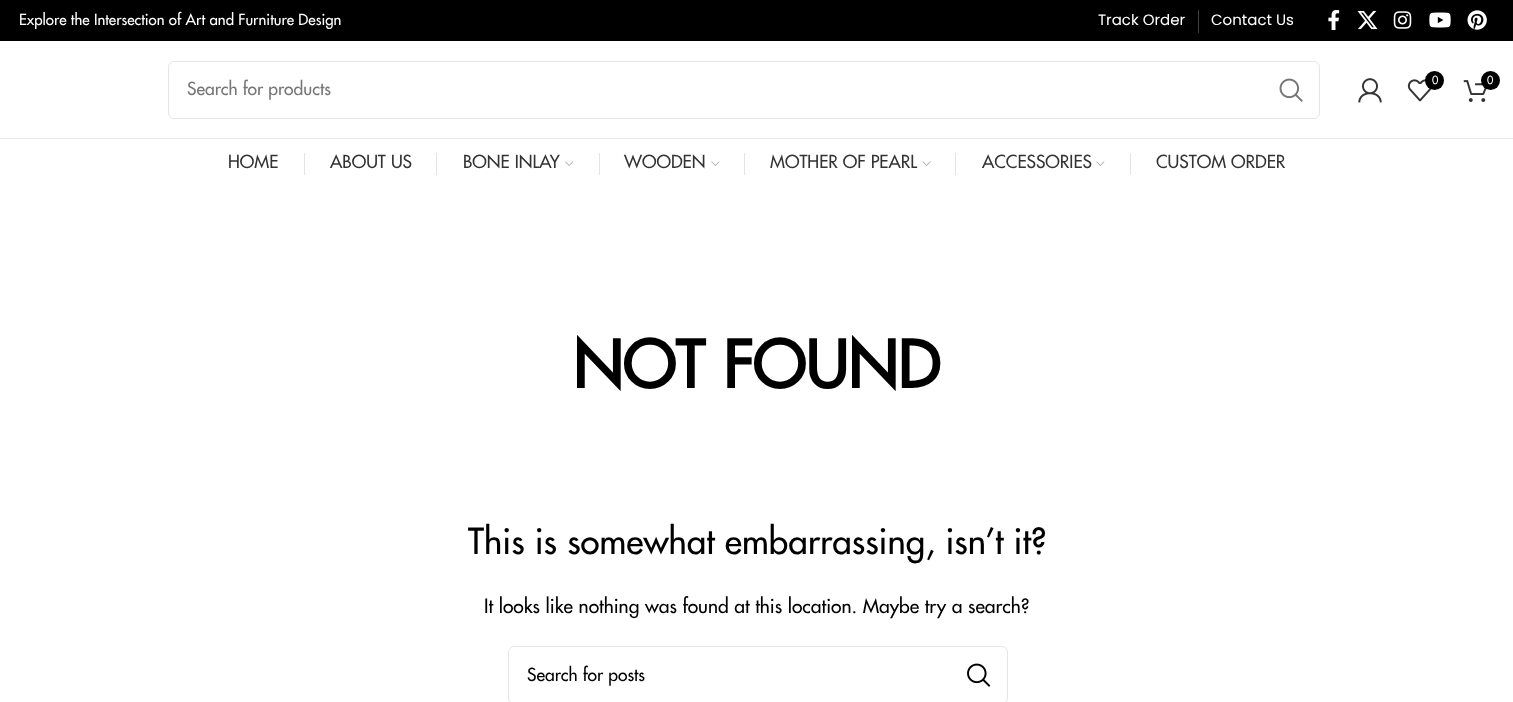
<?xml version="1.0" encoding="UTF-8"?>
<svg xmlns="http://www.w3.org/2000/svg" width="1513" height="702">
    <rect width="100%" height="100%" fill="#FFFFFF"/>
    <rect x="0" y="0" width="1513" height="41" fill="#000000"/>
    <text x="19" y="25" font-family="Futura" font-size="15" fill="#FFFFFF">Explore the Intersection of Art and Furniture Design</text>
    <text x="1098" y="25" font-family="Poppins" font-size="15" fill="#FFFFFF">Track Order</text>
    <rect x="1198" y="10" width="1" height="23" fill="#404040"/>
    <text x="1211" y="25" font-family="Poppins" font-size="15" fill="#FFFFFF">Contact Us</text>
    <image x="1328" y="10" width="12" height="20" href="img_01.png"/>
    <image x="1357" y="10" width="21" height="20" href="img_02.png"/>
    <image x="1393" y="11" width="19" height="18" href="img_03.png"/>
    <image x="1429" y="12" width="22" height="16" href="img_04.png"/>
    <image x="1467" y="10" width="20" height="20" href="img_05.png"/>
    <rect x="0" y="138" width="1513" height="1" fill="#E8E8E8"/>
    <rect x="168.5" y="61.5" width="1151" height="57" rx="5.5" fill="none" stroke="#E6E6E6"/>
    <text x="187" y="95" font-family="Futura" font-size="17.5" fill="#767676">Search for products</text>
    <image x="1279" y="78" width="24" height="24" href="img_06.png"/>
    <image x="1358" y="78" width="24" height="25" href="img_07.png"/>
    <image x="1407" y="79" width="25" height="23" href="img_08.png"/>
    <circle cx="1434.5" cy="80.5" r="9.5" fill="#000000"/>
    <text x="1432" y="84" font-family="Futura" font-size="11" fill="#FFFFFF">0</text>
    <image x="1463" y="80" width="24" height="22" href="img_09.png"/>
    <circle cx="1490.5" cy="80.5" r="9.5" fill="#000000"/>
    <text x="1487" y="84" font-family="Futura" font-size="11" fill="#FFFFFF">0</text>
    <text x="228" y="168" font-family="Futura" font-size="17.5" fill="#333333">HOME</text>
    <rect x="304" y="153" width="1" height="22" fill="#E4E4E4"/>
    <text x="330" y="168" font-family="Futura" font-size="17.5" fill="#333333">ABOUT US</text>
    <rect x="436" y="153" width="1" height="22" fill="#E4E4E4"/>
    <text x="463" y="168" font-family="Futura" font-size="17.5" fill="#333333">BONE INLAY</text>
    <image x="565" y="161" width="8" height="5" href="img_10.png"/>
    <rect x="599" y="153" width="1" height="22" fill="#E4E4E4"/>
    <text x="624" y="168" font-family="Futura" font-size="17.5" fill="#333333">WOODEN</text>
    <image x="711" y="161" width="9" height="5" href="img_11.png"/>
    <rect x="744" y="153" width="1" height="22" fill="#E4E4E4"/>
    <text x="770" y="168" font-family="Futura" font-size="17.5" fill="#333333">MOTHER OF PEARL</text>
    <image x="922" y="161" width="9" height="5" href="img_12.png"/>
    <rect x="955" y="153" width="1" height="22" fill="#E4E4E4"/>
    <text x="982" y="168" font-family="Futura" font-size="17.5" fill="#333333">ACCESSORIES</text>
    <image x="1096" y="161" width="9" height="5" href="img_11.png"/>
    <rect x="1130" y="153" width="1" height="22" fill="#E4E4E4"/>
    <text x="1156" y="168" font-family="Futura" font-size="17.5" fill="#333333">CUSTOM ORDER</text>
    <text x="573" y="388" font-family="Futura" font-size="63.5" font-weight="700" fill="#000000">NOT FOUND</text>
    <text x="468" y="554" font-family="Futura" font-size="35" fill="#000000">This is somewhat embarrassing, isn’t it?</text>
    <text x="484" y="613" font-family="Futura" font-size="19.25" fill="#000000">It looks like nothing was found at this location. Maybe try a search?</text>
    <rect x="508.5" y="646.5" width="499" height="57" rx="5.5" fill="none" stroke="#E6E6E6"/>
    <text x="527" y="681" font-family="Futura" font-size="17.5" fill="#000000">Search for posts</text>
    <image x="967" y="663" width="24" height="24" href="img_13.png"/>
</svg>
